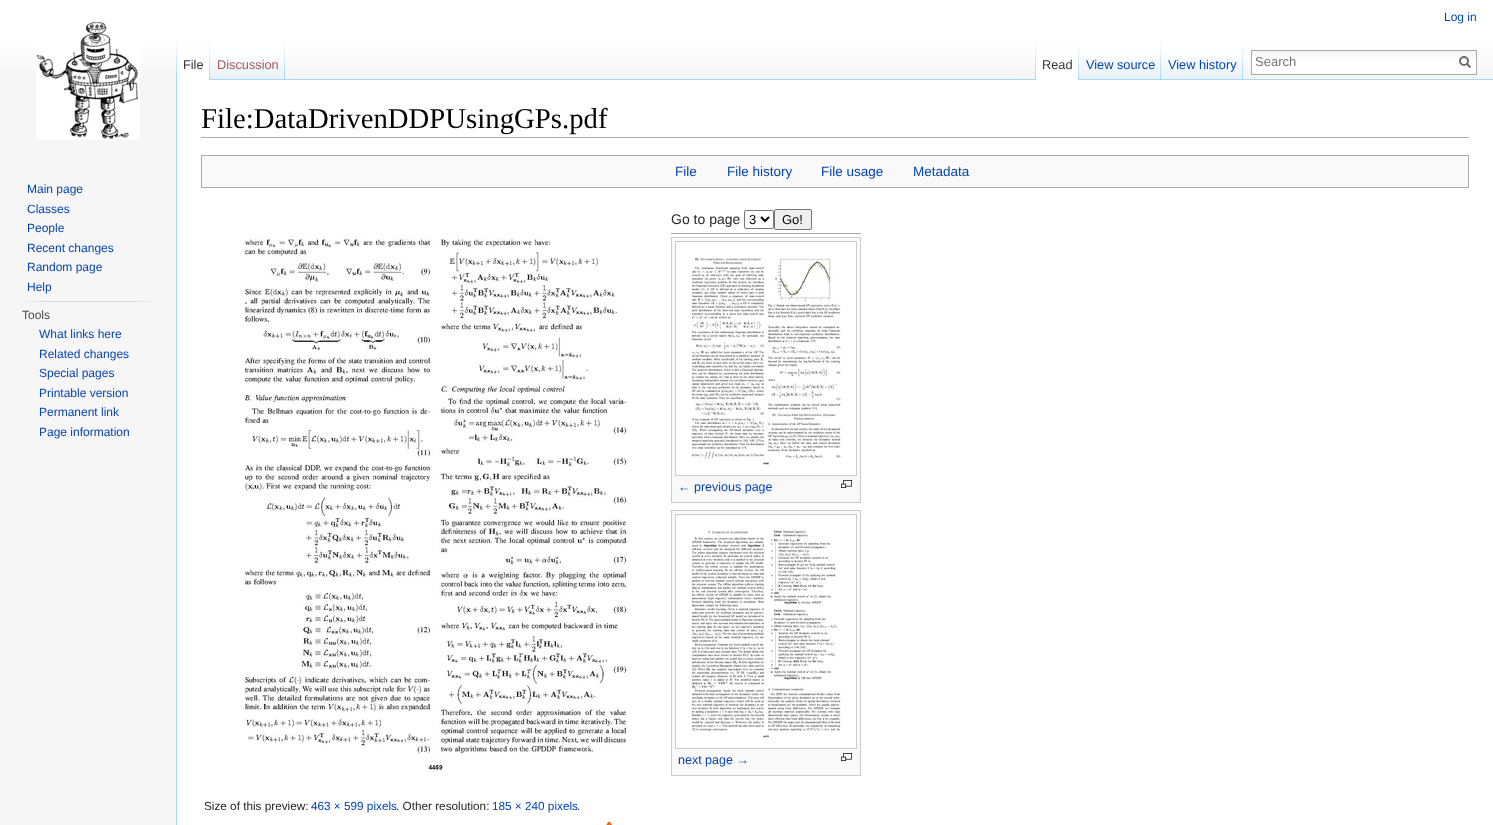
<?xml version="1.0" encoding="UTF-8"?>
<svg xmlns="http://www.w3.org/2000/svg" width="1493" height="825">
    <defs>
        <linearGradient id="g1" gradientUnits="userSpaceOnUse" x1="747" y1="0" x2="747" y2="80"><stop offset="0.5" stop-color="#FFFFFF"/><stop offset="1" stop-color="#F6F6F6"/></linearGradient>
    </defs>
    <rect width="100%" height="100%" fill="#F6F6F6"/>
    <rect x="0" y="0" width="1493" height="69" fill="url(#g1)"/>
    <text x="1444" y="21" font-family="Liberation Sans" font-size="12" fill="#0645AD">Log in</text>
    <image x="176" y="40" width="1" height="39" href="img_01.png"/>
    <rect x="177" y="51" width="32" height="29" fill="#FFFFFF"/>
    <image x="209" y="40" width="1" height="40" href="img_02.png"/>
    <text x="183" y="69" font-family="Liberation Sans" font-size="12.75" fill="#333333">File</text>
    <image x="210" y="40" width="75" height="40" href="img_03.png"/>
    <image x="284" y="40" width="1" height="39" href="img_04.png"/>
    <text x="217" y="69" font-family="Liberation Sans" font-size="12.75" fill="#A55858">Discussion</text>
    <image x="1035" y="40" width="1" height="39" href="img_01.png"/>
    <rect x="285" y="79" width="1208" height="1" fill="#A7D7F9"/>
    <rect x="1036" y="51" width="42" height="29" fill="#FFFFFF"/>
    <image x="1078" y="40" width="1" height="40" href="img_02.png"/>
    <text x="1042" y="69" font-family="Liberation Sans" font-size="12.75" fill="#333333">Read</text>
    <image x="1079" y="40" width="82" height="40" href="img_05.png"/>
    <image x="1160" y="40" width="1" height="39" href="img_04.png"/>
    <text x="1086" y="69" font-family="Liberation Sans" font-size="12.75" fill="#0645AD">View source</text>
    <image x="1161" y="40" width="82" height="40" href="img_05.png"/>
    <image x="1242" y="40" width="1" height="39" href="img_04.png"/>
    <text x="1168" y="69" font-family="Liberation Sans" font-size="12.75" fill="#0645AD">View history</text>
    <rect x="1252" y="59" width="224" height="15" fill="#FFFFFF"/>
    <image x="1252" y="51" width="224" height="8" href="img_06.png"/>
    <rect x="1251.5" y="50.5" width="225" height="24" fill="none" stroke="#AAAAAA"/>
    <text x="1255" y="66" font-family="Liberation Sans" font-size="13" fill="#757575">Search</text>
    <path d="M 1470.5 67.5 L 1466.5 63.5" fill="none" stroke="#6C6C6C" stroke-width="2"/>
    <circle cx="1464" cy="61" r="4" fill="none" stroke="#6C6C6C" stroke-width="2"/>
    <image x="36" y="21" width="104" height="119" href="img_07.png"/>
    <text font-family="Liberation Sans" font-size="12" fill="#0645AD">
        <tspan x="27" y="193">Main page</tspan>
        <tspan x="27" y="213">Classes</tspan>
        <tspan x="27" y="232">People</tspan>
        <tspan x="27" y="252">Recent changes</tspan>
        <tspan x="27" y="271">Random page</tspan>
        <tspan x="27" y="291">Help</tspan>
    </text>
    <image x="22" y="301" width="135" height="1" href="img_08.png"/>
    <text x="22" y="319" font-family="Liberation Sans" font-size="12" fill="#4D4D4D">Tools</text>
    <text font-family="Liberation Sans" font-size="12" fill="#0645AD">
        <tspan x="39" y="338">What links here</tspan>
        <tspan x="39" y="358">Related changes</tspan>
        <tspan x="39" y="377">Special pages</tspan>
        <tspan x="39" y="397">Printable version</tspan>
        <tspan x="39" y="416">Permanent link</tspan>
        <tspan x="39" y="436">Page information</tspan>
    </text>
    <rect x="177" y="80" width="1316" height="745" fill="#FFFFFF"/>
    <rect x="176" y="79" width="1" height="746" fill="#A7D7F9"/>
    <rect x="201" y="137" width="1268" height="1" fill="#AAAAAA"/>
    <text x="201" y="128" font-family="Liberation Serif" font-size="28.75" fill="#000000">File:DataDrivenDDPUsingGPs.pdf</text>
    <rect x="201.5" y="155.5" width="1267" height="32" fill="#F9F9F9" stroke="#AAAAAA"/>
    <text x="675" y="176" font-family="Liberation Sans" font-size="13.5" fill="#0645AD">File</text>
    <text x="727" y="176" font-family="Liberation Sans" font-size="13.5" fill="#0645AD">File history</text>
    <text x="821" y="176" font-family="Liberation Sans" font-size="13.5" fill="#0645AD">File usage</text>
    <text x="913" y="176" font-family="Liberation Sans" font-size="13.5" fill="#0645AD">Metadata</text>
    <text x="671" y="224" font-family="Liberation Sans" font-size="14" fill="#252525">Go to page</text>
    <rect x="744.5" y="210.5" width="29" height="18" rx="1.5" fill="none" stroke="#767676"/>
    <path d="M 761 217 L 765 221 L 769 217" fill="none" stroke="#000000" stroke-width="2"/>
    <text x="749" y="224" font-family="Liberation Sans" font-size="13" fill="#000000">3</text>
    <rect x="774.5" y="209.5" width="37" height="20" rx="1.5" fill="#EFEFEF" stroke="#767676"/>
    <text x="782" y="224" font-family="Liberation Sans" font-size="13" fill="#000000">Go!</text>
    <rect x="671" y="233" width="190" height="1" fill="#AAAAAA"/>
    <rect x="671.5" y="237.5" width="189" height="265" fill="#F9F9F9" stroke="#CCCCCC"/>
    <rect x="675.5" y="241.5" width="181" height="234" fill="none" stroke="#CCCCCC"/>
    <image x="676" y="242" width="180" height="233" href="img_09.png"/>
    <text x="678" y="491" font-family="Liberation Sans" font-size="12.5" fill="#0645AD">← previous page</text>
    <image x="841" y="480" width="11" height="8" href="img_10.png"/>
    <rect x="671.5" y="510.5" width="189" height="265" fill="#F9F9F9" stroke="#CCCCCC"/>
    <rect x="675.5" y="514.5" width="181" height="234" fill="none" stroke="#CCCCCC"/>
    <image x="676" y="515" width="180" height="233" href="img_11.png"/>
    <text x="678" y="764" font-family="Liberation Sans" font-size="12.5" fill="#0645AD">next page →</text>
    <image x="841" y="753" width="11" height="8" href="img_10.png"/>
    <image x="244" y="238" width="384" height="535" href="img_12.png"/>
    <text x="204" y="810" font-family="Liberation Sans" font-size="11.75" fill="#252525">Size of this preview:</text>
    <text x="311" y="810" font-family="Liberation Sans" font-size="11.75" fill="#0645AD">463 × 599 pixels</text>
    <text x="396" y="810" font-family="Liberation Sans" font-size="11.75" fill="#252525">. Other resolution:</text>
    <text x="492" y="810" font-family="Liberation Sans" font-size="11.75" fill="#0645AD">185 × 240 pixels</text>
    <text x="577" y="810" font-family="Liberation Sans" font-size="11.75" fill="#252525">.</text>
    <image x="606" y="821" width="6" height="4" href="img_13.png"/>
</svg>
